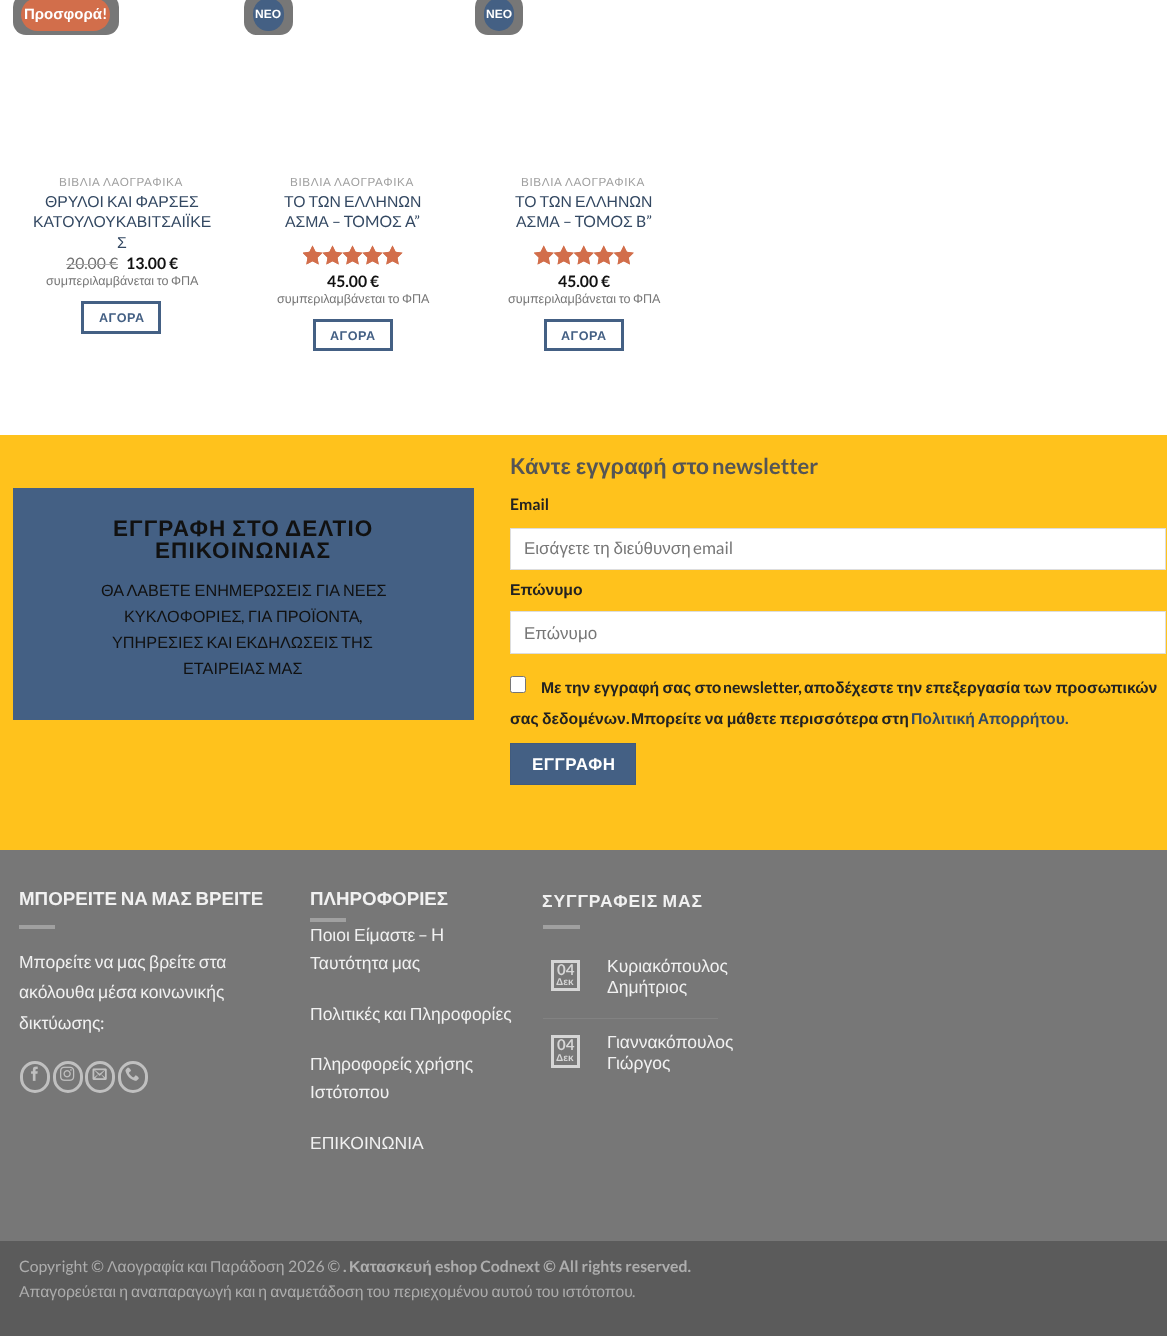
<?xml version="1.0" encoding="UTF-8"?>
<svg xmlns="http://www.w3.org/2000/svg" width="1167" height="1336">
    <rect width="100%" height="100%" fill="#FFFFFF"/>
    <rect x="13" y="-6" width="106" height="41" rx="13" fill="#777777"/>
    <rect x="21" y="-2" width="89" height="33" rx="16.5" fill="#D26E4B"/>
    <text x="24" y="19" font-family="Liberation Sans" font-size="15" font-weight="700" fill="#FFFFFF">Προσφορά</text>
    <text x="102" y="19" font-family="Lato" font-size="15" font-weight="700" fill="#FFFFFF">!</text>
    <text x="59" y="186" font-family="Liberation Sans" font-size="11.75" letter-spacing="0.6" fill="#A0A0A0">ΒΙΒΛΙΑ ΛΑΟΓΡΑΦΙΚΑ</text>
    <text x="45" y="207" word-spacing="-1.25" font-family="Liberation Sans" font-size="15.75" fill="#334862">ΘΡΥΛΟΙ ΚΑΙ ΦΑΡΣΕΣ</text>
    <text x="33" y="227" font-family="Liberation Sans" font-size="15.75" fill="#334862">ΚΑΤΟΥΛΟΥΚΑΒΙΤΣΑΙΪΚΕ</text>
    <text x="117" y="248" font-family="Liberation Sans" font-size="15.75" fill="#334862">Σ</text>
    <text x="66" y="269" font-family="Lato" font-size="15.75" fill="#707070">20.00</text>
    <rect x="66" y="264" width="43" height="1" fill="#ADADAD"/>
    <text x="109" y="269" font-family="Lato" font-size="15.75" fill="#707070">€</text>
    <rect x="109" y="264" width="9" height="1" fill="#ADADAD"/>
    <text x="126" y="269" font-family="Lato" font-size="15.75" font-weight="700" fill="#111111">13.00 €</text>
    <text x="46" y="285" word-spacing="-1" font-family="Liberation Sans" font-size="12.6" fill="#777777">συμπεριλαμβάνεται το ΦΠΑ</text>
    <rect x="82.5" y="302.5" width="77" height="30" fill="none" stroke="#446084" stroke-width="3"/>
    <text x="99" y="322" font-family="Liberation Sans" font-size="12.6" font-weight="700" letter-spacing="0.5" fill="#446084">ΑΓΟΡΑ</text>
    <rect x="244" y="-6" width="49" height="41" rx="13" fill="#777777"/>
    <rect x="253" y="-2" width="31" height="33" rx="15.5" fill="#446084"/>
    <text x="255" y="18" font-family="Liberation Sans" font-size="12" font-weight="700" fill="#FFFFFF">ΝΕΟ</text>
    <text x="290" y="186" font-family="Liberation Sans" font-size="11.75" letter-spacing="0.6" fill="#A0A0A0">ΒΙΒΛΙΑ ΛΑΟΓΡΑΦΙΚΑ</text>
    <text x="284" y="207" word-spacing="-1.25" font-family="Liberation Sans" font-size="15.75" fill="#334862">ΤΟ ΤΩΝ ΕΛΛΗΝΩΝ</text>
    <text x="285" y="227" font-family="Liberation Sans" font-size="15.75" fill="#334862">ΑΣΜΑ</text>
    <text x="332" y="227" font-family="Lato" font-size="15.75" fill="#334862">– TOMO</text>
    <text x="392" y="227" font-family="Liberation Sans" font-size="15.75" fill="#334862">Σ</text>
    <text x="405" y="227" font-family="Lato" font-size="15.75" fill="#334862">A”</text>
    <image x="303" y="245" width="100" height="20" href="img_01.png"/>
    <image x="303" y="245" width="100" height="20" href="img_02.png"/>
    <text x="327" y="287" font-family="Lato" font-size="15.75" font-weight="700" fill="#111111">45.00 €</text>
    <text x="277" y="303" word-spacing="-1" font-family="Liberation Sans" font-size="12.6" fill="#777777">συμπεριλαμβάνεται το ΦΠΑ</text>
    <rect x="314.5" y="320.5" width="77" height="29" fill="none" stroke="#446084" stroke-width="3"/>
    <text x="330" y="340" font-family="Liberation Sans" font-size="12.6" font-weight="700" letter-spacing="0.5" fill="#446084">ΑΓΟΡΑ</text>
    <rect x="475" y="-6" width="48" height="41" rx="13" fill="#777777"/>
    <rect x="484" y="-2" width="30" height="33" rx="15" fill="#446084"/>
    <text x="486" y="18" font-family="Liberation Sans" font-size="12" font-weight="700" fill="#FFFFFF">ΝΕΟ</text>
    <text x="521" y="186" font-family="Liberation Sans" font-size="11.75" letter-spacing="0.6" fill="#A0A0A0">ΒΙΒΛΙΑ ΛΑΟΓΡΑΦΙΚΑ</text>
    <text x="515" y="207" word-spacing="-1.25" font-family="Liberation Sans" font-size="15.75" fill="#334862">ΤΟ ΤΩΝ ΕΛΛΗΝΩΝ</text>
    <text x="516" y="227" font-family="Liberation Sans" font-size="15.75" fill="#334862">ΑΣΜΑ</text>
    <text x="563" y="227" font-family="Lato" font-size="15.75" fill="#334862">– TOMO</text>
    <text x="623" y="227" font-family="Liberation Sans" font-size="15.75" fill="#334862">Σ</text>
    <text x="636" y="227" font-family="Lato" font-size="15.75" fill="#334862">B”</text>
    <image x="534" y="245" width="100" height="20" href="img_03.png"/>
    <image x="534" y="245" width="100" height="20" href="img_04.png"/>
    <text x="558" y="287" font-family="Lato" font-size="15.75" font-weight="700" fill="#111111">45.00 €</text>
    <text x="508" y="303" word-spacing="-1" font-family="Liberation Sans" font-size="12.6" fill="#777777">συμπεριλαμβάνεται το ΦΠΑ</text>
    <rect x="545.5" y="320.5" width="77" height="29" fill="none" stroke="#446084" stroke-width="3"/>
    <text x="561" y="340" font-family="Liberation Sans" font-size="12.6" font-weight="700" letter-spacing="0.5" fill="#446084">ΑΓΟΡΑ</text>
    <rect x="0" y="435" width="1167" height="415" fill="#FFC21C"/>
    <rect x="13" y="488" width="461" height="232" fill="#446084"/>
    <text x="113" y="536" word-spacing="-1.5" font-family="Liberation Sans" font-size="22.5" font-weight="700" letter-spacing="1.1" fill="#111111">ΕΓΓΡΑΦΗ ΣΤΟ ΔΕΛΤΙΟ</text>
    <text x="155" y="558" font-family="Liberation Sans" font-size="22.5" font-weight="700" letter-spacing="1.1" fill="#111111">ΕΠΙΚΟΙΝΩΝΙΑΣ</text>
    <text x="101" y="596" word-spacing="-0.5" font-family="Liberation Sans" font-size="16.25" fill="#111111">ΘΑ ΛΑΒΕΤΕ ΕΝΗΜΕΡΩΣΕΙΣ ΓΙΑ ΝΕΕΣ</text>
    <text x="124" y="622" font-family="Liberation Sans" font-size="16.25" fill="#111111">ΚΥΚΛΟΦΟΡΙΕΣ</text>
    <text x="241" y="622" font-family="Lato" font-size="16.25" fill="#111111">,</text>
    <text x="248" y="622" font-family="Liberation Sans" font-size="16.25" fill="#111111">ΓΙΑ ΠΡΟΪΟΝΤΑ</text>
    <text x="359" y="622" font-family="Lato" font-size="16.25" fill="#111111">,</text>
    <text x="112" y="648" word-spacing="-1.5" font-family="Liberation Sans" font-size="16.25" fill="#111111">ΥΠΗΡΕΣΙΕΣ ΚΑΙ ΕΚΔΗΛΩΣΕΙΣ ΤΗΣ</text>
    <text x="183" y="674" word-spacing="-1.5" font-family="Liberation Sans" font-size="16.25" fill="#111111">ΕΤΑΙΡΕΙΑΣ ΜΑΣ</text>
    <text x="510" y="474" font-family="Lato" font-size="21.9" font-weight="700" fill="#555555">K</text>
    <text x="525" y="474" word-spacing="-1" font-family="Liberation Sans" font-size="21.9" font-weight="700" fill="#555555">άντε εγγραφή στο</text>
    <text x="712" y="474" font-family="Lato" font-size="21.9" font-weight="700" fill="#555555">newsletter</text>
    <text x="510" y="510" font-family="Lato" font-size="15.75" font-weight="700" fill="#222222">Email</text>
    <rect x="510.5" y="528.5" width="655" height="41" fill="#FFFFFF" stroke="#DDDDDD"/>
    <text x="524" y="554" word-spacing="-1" font-family="Liberation Sans" font-size="17" fill="#777777">Εισάγετε τη διεύθυνση</text>
    <text x="693" y="554" font-family="Lato" font-size="17" fill="#777777">email</text>
    <text x="510" y="595" font-family="Liberation Sans" font-size="15.75" font-weight="700" fill="#222222">Επώνυμο</text>
    <rect x="510.5" y="611.5" width="655" height="42" fill="#FFFFFF" stroke="#DDDDDD"/>
    <text x="524" y="639" font-family="Liberation Sans" font-size="17" fill="#777777">Επώνυμο</text>
    <rect x="510.5" y="676.5" width="15" height="16" rx="2" fill="#FFFFFF" stroke="#767676"/>
    <text x="541" y="693" word-spacing="-1" font-family="Liberation Sans" font-size="15.75" font-weight="700" fill="#222222">Με την εγγραφή σας στο</text>
    <text x="723" y="693" font-family="Lato" font-size="15.75" font-weight="700" fill="#222222">newsletter,</text>
    <text x="804" y="693" word-spacing="-1" font-family="Liberation Sans" font-size="15.75" font-weight="700" fill="#222222">αποδέχεστε την επεξεργασία των προσωπικών</text>
    <text x="510" y="724" word-spacing="-1" font-family="Liberation Sans" font-size="15.75" font-weight="700" fill="#222222">σας δεδομένων</text>
    <text x="626" y="724" font-family="Lato" font-size="15.75" font-weight="700" fill="#222222">.</text>
    <text x="631" y="724" word-spacing="-1" font-family="Liberation Sans" font-size="15.75" font-weight="700" fill="#222222">Μπορείτε να μάθετε περισσότερα στη</text>
    <text x="911" y="724" word-spacing="-1" font-family="Liberation Sans" font-size="15.75" font-weight="700" fill="#334862">Πολιτική Απορρήτου</text>
    <text x="1065" y="724" font-family="Lato" font-size="15.75" font-weight="700" fill="#334862">.</text>
    <rect x="510.5" y="743.5" width="125" height="41" fill="#446084" stroke="#415B7D"/>
    <text x="532" y="770" font-family="Liberation Sans" font-size="17" font-weight="700" letter-spacing="0.5" fill="#FFFFFF">ΕΓΓΡΑΦΗ</text>
    <rect x="0" y="850" width="1167" height="391" fill="#777777"/>
    <text x="19" y="905" word-spacing="-1.5" font-family="Liberation Sans" font-size="18.75" font-weight="700" fill="#F1F1F1">ΜΠΟΡΕΙΤΕ ΝΑ ΜΑΣ ΒΡΕΙΤΕ</text>
    <rect x="19" y="925" width="36" height="4" fill="#A0A0A0"/>
    <text font-family="Liberation Sans" font-size="17.5" fill="#F1F1F1">
        <tspan x="19" y="968" word-spacing="-1.5">Μπορείτε να μας βρείτε στα</tspan>
        <tspan x="19" y="998" word-spacing="-1.5">ακόλουθα μέσα κοινωνικής</tspan>
        <tspan x="19" y="1029">δικτύωσης</tspan>
    </text>
    <text x="100" y="1029" font-family="Lato" font-size="17.5" fill="#F1F1F1">:</text>
    <rect x="21.5" y="1062.5" width="27" height="29" rx="13.5" fill="none" stroke="#C0C0C0" stroke-width="3"/>
    <image x="31" y="1066" width="7" height="15" href="img_05.png"/>
    <rect x="54.5" y="1062.5" width="27" height="29" rx="13.5" fill="none" stroke="#C0C0C0" stroke-width="3"/>
    <image x="60" y="1066" width="15" height="15" href="img_06.png"/>
    <rect x="86.5" y="1062.5" width="27" height="29" rx="13.5" fill="none" stroke="#C0C0C0" stroke-width="3"/>
    <image x="92" y="1068" width="15" height="12" href="img_07.png"/>
    <rect x="119.5" y="1062.5" width="27" height="29" rx="13.5" fill="none" stroke="#C0C0C0" stroke-width="3"/>
    <image x="125" y="1067" width="14" height="14" href="img_08.png"/>
    <text x="310" y="905" font-family="Liberation Sans" font-size="18.75" font-weight="700" fill="#F1F1F1">ΠΛΗΡΟΦΟΡΙΕΣ</text>
    <rect x="310" y="918" width="36" height="4" fill="#A0A0A0"/>
    <text x="310" y="941" font-family="Liberation Sans" font-size="17.5" fill="#F1F1F1">Ποιοι</text>
    <text x="354" y="941" font-family="Liberation Sans" font-size="17.5" fill="#F1F1F1">Είμαστε</text>
    <text x="418" y="941" font-family="Lato" font-size="17.5" fill="#F1F1F1">– H</text>
    <text x="310" y="969" word-spacing="-1.5" font-family="Liberation Sans" font-size="17.5" fill="#F1F1F1">Ταυτότητα μας</text>
    <text x="310" y="1020" word-spacing="-1.5" font-family="Liberation Sans" font-size="17.5" fill="#F1F1F1">Πολιτικές και Πληροφορίες</text>
    <text font-family="Liberation Sans" font-size="17.5" fill="#F1F1F1">
        <tspan x="310" y="1070" word-spacing="-1.5">Πληροφορείς χρήσης</tspan>
        <tspan x="310" y="1098">Ιστότοπου</tspan>
    </text>
    <text x="310" y="1149" font-family="Liberation Sans" font-size="17.5" fill="#F1F1F1">ΕΠΙΚΟΙΝΩΝΙΑ</text>
    <text x="542" y="907" word-spacing="-1.5" font-family="Liberation Sans" font-size="17.5" font-weight="700" letter-spacing="0.9" fill="#F1F1F1">ΣΥΓΓΡΑΦΕΙΣ ΜΑΣ</text>
    <rect x="543" y="925" width="37" height="4" fill="#A0A0A0"/>
    <rect x="552.5" y="961.5" width="26" height="28" fill="none" stroke="#D6D6D6" stroke-width="3"/>
    <text x="557" y="975" font-family="Lato" font-size="15" font-weight="700" fill="#D6D6D6">04</text>
    <text x="556" y="985" font-family="Liberation Sans" font-size="10" font-weight="700" fill="#D6D6D6">Δεκ</text>
    <text font-family="Liberation Sans" font-size="17.5" fill="#F1F1F1">
        <tspan x="607" y="972">Κυριακόπουλος</tspan>
        <tspan x="607" y="993">Δημήτριος</tspan>
    </text>
    <rect x="543" y="1018" width="175" height="1" fill="#828282"/>
    <rect x="552.5" y="1036.5" width="26" height="30" fill="none" stroke="#D6D6D6" stroke-width="3"/>
    <text x="557" y="1050" font-family="Lato" font-size="15" font-weight="700" fill="#D6D6D6">04</text>
    <text x="556" y="1061" font-family="Liberation Sans" font-size="10" font-weight="700" fill="#D6D6D6">Δεκ</text>
    <text font-family="Liberation Sans" font-size="17.5" fill="#F1F1F1">
        <tspan x="607" y="1048">Γιαννακόπουλος</tspan>
        <tspan x="607" y="1069">Γιώργος</tspan>
    </text>
    <rect x="0" y="1241" width="1167" height="95" fill="#5B5B5B"/>
    <text x="19" y="1272" font-family="Lato" font-size="15.75" fill="#ADADAD">Copyright ©</text>
    <text x="107" y="1272" font-family="Liberation Sans" font-size="15.75" fill="#ADADAD">Λαογραφία</text>
    <text x="187" y="1272" font-family="Liberation Sans" font-size="15.75" fill="#ADADAD">και</text>
    <text x="210" y="1272" font-family="Liberation Sans" font-size="15.75" fill="#ADADAD">Παράδοση</text>
    <text x="288" y="1272" font-family="Lato" font-size="15.75" fill="#ADADAD">2026 ©</text>
    <text x="343" y="1272" font-family="Lato" font-size="15.75" font-weight="700" fill="#ADADAD">.</text>
    <text x="349" y="1272" font-family="Liberation Sans" font-size="15.75" font-weight="700" fill="#ADADAD">Κατασκευή</text>
    <text x="435" y="1272" font-family="Lato" font-size="15.75" font-weight="700" fill="#ADADAD">eshop Codnext © All rights reserved.</text>
    <text x="19" y="1297" word-spacing="-1.25" font-family="Liberation Sans" font-size="15.75" fill="#ADADAD">Απαγορεύεται η αναπαραγωγή και η αναμετάδοση του περιεχομένου αυτού του ιστότοπου</text>
    <text x="632" y="1297" font-family="Lato" font-size="15.75" fill="#ADADAD">.</text>
</svg>
